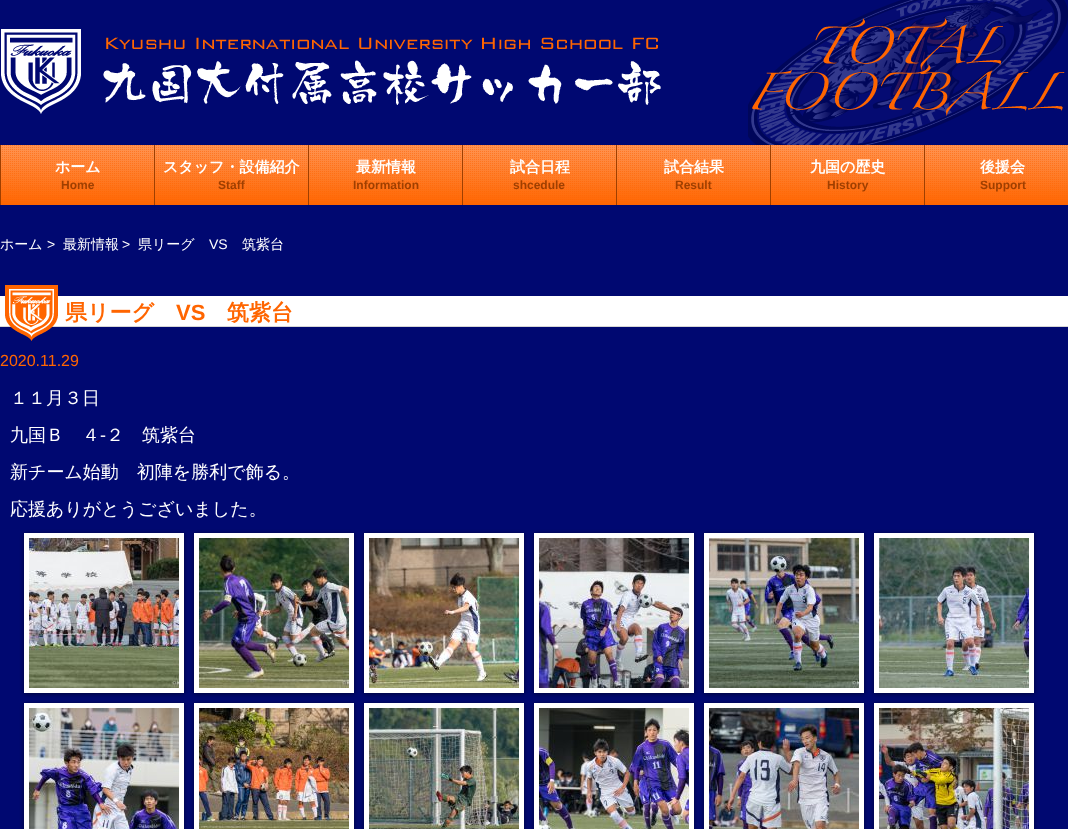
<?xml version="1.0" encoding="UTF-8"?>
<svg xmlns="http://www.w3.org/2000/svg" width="1068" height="829">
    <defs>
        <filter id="blur1" x="-50%" y="-200%" width="200%" height="500%"><feGaussianBlur stdDeviation="2.5"/></filter>
    </defs>
    <rect width="100%" height="100%" fill="#000871"/>
    <image x="748" y="0" width="320" height="145" href="img_01.png"/>
    <image x="1" y="29" width="660" height="85" href="img_02.png"/>
    <image x="1" y="145" width="1067" height="60" href="img_03.png"/>
    <rect x="154" y="145" width="1" height="60" fill="#9F3F00"/>
    <rect x="0" y="145" width="1" height="60" fill="#9F3F00"/>
    <text x="55" y="172" font-family="WenQuanYi Zen Hei" font-size="15" font-weight="700" fill="#FFFFFF">ホーム</text>
    <text x="61" y="189" font-family="Liberation Sans" font-size="12" font-weight="700" fill="#9F3F00">Home</text>
    <rect x="308" y="145" width="1" height="60" fill="#9F3F00"/>
    <text x="163" y="172" font-family="WenQuanYi Zen Hei" font-size="15" font-weight="700" fill="#FFFFFF">スタッフ・設備紹介</text>
    <text x="218" y="189" font-family="Liberation Sans" font-size="12" font-weight="700" fill="#9F3F00">Staff</text>
    <rect x="462" y="145" width="1" height="60" fill="#9F3F00"/>
    <text x="356" y="172" font-family="WenQuanYi Zen Hei" font-size="15" font-weight="700" fill="#FFFFFF">最新情報</text>
    <text x="353" y="189" font-family="Liberation Sans" font-size="12" font-weight="700" fill="#9F3F00">Information</text>
    <rect x="616" y="145" width="1" height="60" fill="#9F3F00"/>
    <text x="510" y="172" font-family="WenQuanYi Zen Hei" font-size="15" font-weight="700" fill="#FFFFFF">試合日程</text>
    <text x="513" y="189" font-family="Liberation Sans" font-size="12" font-weight="700" fill="#9F3F00">shcedule</text>
    <rect x="770" y="145" width="1" height="60" fill="#9F3F00"/>
    <text x="664" y="172" font-family="WenQuanYi Zen Hei" font-size="15" font-weight="700" fill="#FFFFFF">試合結果</text>
    <text x="675" y="189" font-family="Liberation Sans" font-size="12" font-weight="700" fill="#9F3F00">Result</text>
    <rect x="924" y="145" width="1" height="60" fill="#9F3F00"/>
    <text x="810" y="172" font-family="WenQuanYi Zen Hei" font-size="15" font-weight="700" fill="#FFFFFF">九国の歴史</text>
    <text x="827" y="189" font-family="Liberation Sans" font-size="12" font-weight="700" fill="#9F3F00">History</text>
    <text x="980" y="172" font-family="WenQuanYi Zen Hei" font-size="15" font-weight="700" fill="#FFFFFF">後援会</text>
    <text x="980" y="189" font-family="Liberation Sans" font-size="12" font-weight="700" fill="#9F3F00">Support</text>
    <text x="0" y="249" font-family="WenQuanYi Zen Hei" font-size="14" font-weight="500" fill="#FFFFFF">ホーム</text>
    <text x="47" y="249" font-family="Liberation Sans" font-size="14" fill="#FFFFFF">&gt;</text>
    <text x="63" y="249" font-family="WenQuanYi Zen Hei" font-size="14" font-weight="500" fill="#FFFFFF">最新情報</text>
    <text x="122" y="249" font-family="Liberation Sans" font-size="14" fill="#FFFFFF">&gt;</text>
    <text x="138" y="249" font-family="WenQuanYi Zen Hei" font-size="14" font-weight="500" fill="#FFFFFF">県リーグ</text>
    <text x="209" y="249" font-family="Liberation Sans" font-size="14" fill="#FFFFFF">VS</text>
    <text x="242" y="249" font-family="WenQuanYi Zen Hei" font-size="14" font-weight="500" fill="#FFFFFF">筑紫台</text>
    <rect x="0" y="296" width="1068" height="30" fill="#FFFFFF"/>
    <rect x="0" y="326" width="1068" height="1" fill="#D6D6D6"/>
    <image x="5" y="285" width="53" height="56" href="img_04.png"/>
    <text x="65" y="320" font-family="WenQuanYi Zen Hei" font-size="22" font-weight="700" fill="#FF6500">県リーグ</text>
    <text x="176" y="320" font-family="Liberation Sans" font-size="22" font-weight="700" fill="#FF6500">VS</text>
    <text x="227" y="320" font-family="WenQuanYi Zen Hei" font-size="22" font-weight="700" fill="#FF6500">筑紫台</text>
    <text x="0" y="366" font-family="Liberation Sans" font-size="16" fill="#FF6500">2020.11.29</text>
    <text x="10" y="404" font-family="WenQuanYi Zen Hei" font-size="18" font-weight="500" fill="#FFFFFF">１１月３日</text>
    <text x="10" y="441" font-family="WenQuanYi Zen Hei" font-size="18" font-weight="500" fill="#FFFFFF">九国Ｂ　４</text>
    <text x="100" y="441" font-family="Liberation Sans" font-size="18" fill="#FFFFFF">-</text>
    <text x="106" y="441" font-family="WenQuanYi Zen Hei" font-size="18" font-weight="500" fill="#FFFFFF">２　筑紫台</text>
    <text x="10" y="478" font-family="WenQuanYi Zen Hei" font-size="18" font-weight="500" fill="#FFFFFF">新チーム始動　初陣を勝利で飾る。</text>
    <text x="10" y="515" font-family="WenQuanYi Zen Hei" font-size="18" font-weight="500" fill="#FFFFFF">応援ありがとうございました。</text>
    <rect x="24" y="534" width="160" height="160" fill="#000000" fill-opacity="0.5" filter="url(#blur1)"/>
    <rect x="26.5" y="535.5" width="155" height="155" fill="none" stroke="#FFFFFF" stroke-width="5"/>
    <image x="29" y="538" width="150" height="150" href="img_05.png"/>
    <rect x="194" y="534" width="160" height="160" fill="#000000" fill-opacity="0.5" filter="url(#blur1)"/>
    <rect x="196.5" y="535.5" width="155" height="155" fill="none" stroke="#FFFFFF" stroke-width="5"/>
    <image x="199" y="538" width="150" height="150" href="img_06.png"/>
    <rect x="364" y="534" width="160" height="160" fill="#000000" fill-opacity="0.5" filter="url(#blur1)"/>
    <rect x="366.5" y="535.5" width="155" height="155" fill="none" stroke="#FFFFFF" stroke-width="5"/>
    <image x="369" y="538" width="150" height="150" href="img_07.png"/>
    <rect x="534" y="534" width="160" height="160" fill="#000000" fill-opacity="0.5" filter="url(#blur1)"/>
    <rect x="536.5" y="535.5" width="155" height="155" fill="none" stroke="#FFFFFF" stroke-width="5"/>
    <image x="539" y="538" width="150" height="150" href="img_08.png"/>
    <rect x="704" y="534" width="160" height="160" fill="#000000" fill-opacity="0.5" filter="url(#blur1)"/>
    <rect x="706.5" y="535.5" width="155" height="155" fill="none" stroke="#FFFFFF" stroke-width="5"/>
    <image x="709" y="538" width="150" height="150" href="img_09.png"/>
    <rect x="874" y="534" width="160" height="160" fill="#000000" fill-opacity="0.5" filter="url(#blur1)"/>
    <rect x="876.5" y="535.5" width="155" height="155" fill="none" stroke="#FFFFFF" stroke-width="5"/>
    <image x="879" y="538" width="150" height="150" href="img_10.png"/>
    <rect x="24" y="704" width="160" height="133" fill="#000000" fill-opacity="0.5" filter="url(#blur1)"/>
    <rect x="26.5" y="705.5" width="155" height="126" fill="none" stroke="#FFFFFF" stroke-width="5"/>
    <image x="29" y="708" width="150" height="121" href="img_11.png"/>
    <rect x="194" y="704" width="160" height="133" fill="#000000" fill-opacity="0.5" filter="url(#blur1)"/>
    <rect x="196.5" y="705.5" width="155" height="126" fill="none" stroke="#FFFFFF" stroke-width="5"/>
    <image x="199" y="708" width="150" height="121" href="img_12.png"/>
    <rect x="364" y="704" width="160" height="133" fill="#000000" fill-opacity="0.5" filter="url(#blur1)"/>
    <rect x="366.5" y="705.5" width="155" height="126" fill="none" stroke="#FFFFFF" stroke-width="5"/>
    <image x="369" y="708" width="150" height="121" href="img_13.png"/>
    <rect x="534" y="704" width="160" height="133" fill="#000000" fill-opacity="0.5" filter="url(#blur1)"/>
    <rect x="536.5" y="705.5" width="155" height="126" fill="none" stroke="#FFFFFF" stroke-width="5"/>
    <image x="539" y="708" width="150" height="121" href="img_14.png"/>
    <rect x="704" y="704" width="160" height="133" fill="#000000" fill-opacity="0.5" filter="url(#blur1)"/>
    <rect x="706.5" y="705.5" width="155" height="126" fill="none" stroke="#FFFFFF" stroke-width="5"/>
    <image x="709" y="708" width="150" height="121" href="img_15.png"/>
    <rect x="874" y="704" width="160" height="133" fill="#000000" fill-opacity="0.5" filter="url(#blur1)"/>
    <rect x="876.5" y="705.5" width="155" height="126" fill="none" stroke="#FFFFFF" stroke-width="5"/>
    <image x="879" y="708" width="150" height="121" href="img_16.png"/>
</svg>
